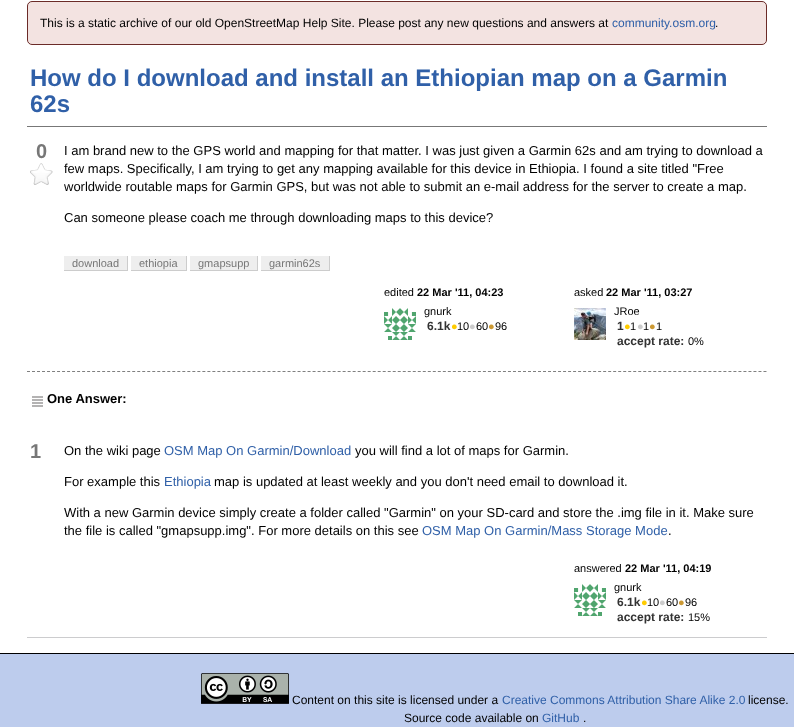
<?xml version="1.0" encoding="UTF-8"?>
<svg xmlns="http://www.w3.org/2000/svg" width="794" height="727">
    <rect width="100%" height="100%" fill="#FFFFFF"/>
    <rect x="27.5" y="1.5" width="739" height="43" rx="4.5" fill="#F3E3E1" stroke="#6B2B28"/>
    <text x="40" y="27" font-family="Liberation Sans" font-size="12" fill="#000000">This is a static archive of our old OpenStreetMap Help Site. Please post any new questions and answers at</text>
    <text x="612" y="27" font-family="Liberation Sans" font-size="12" fill="#3060A8">community.osm.org</text>
    <text x="715" y="27" font-family="Liberation Sans" font-size="12" fill="#000000">.</text>
    <rect x="27" y="126" width="740" height="1" fill="#777777"/>
    <text font-family="Liberation Sans" font-size="24" font-weight="700" fill="#3060A8">
        <tspan x="30" y="86">How do I download and install an Ethiopian map on a Garmin</tspan>
        <tspan x="30" y="112">62s</tspan>
    </text>
    <text x="36" y="158" font-family="Liberation Sans" font-size="20" font-weight="700" fill="#777777">0</text>
    <image x="30" y="163" width="23" height="22" href="img_01.png"/>
    <text font-family="Liberation Sans" font-size="13" fill="#000000">
        <tspan x="64" y="155">I am brand new to the GPS world and mapping for that matter. I was just given a Garmin 62s and am trying to download a</tspan>
        <tspan x="64" y="173">few maps. Specifically, I am trying to get any mapping available for this device in Ethiopia. I found a site titled "Free</tspan>
        <tspan x="64" y="191">worldwide routable maps for Garmin GPS, but was not able to submit an e-mail address for the server to create a map.</tspan>
    </text>
    <text x="64" y="222" font-family="Liberation Sans" font-size="13" fill="#000000">Can someone please coach me through downloading maps to this device?</text>
    <rect x="64" y="256" width="63" height="14" fill="#EEEEEE"/>
    <text x="72" y="267" font-family="Liberation Sans" font-size="11" fill="#777777">download</text>
    <rect x="127" y="256" width="1" height="15" fill="#CCCCCC"/>
    <rect x="64" y="270" width="64" height="1" fill="#CCCCCC"/>
    <rect x="131" y="256" width="55" height="14" fill="#EEEEEE"/>
    <text x="139" y="267" font-family="Liberation Sans" font-size="11" fill="#777777">ethiopia</text>
    <rect x="186" y="256" width="1" height="15" fill="#CCCCCC"/>
    <rect x="131" y="270" width="56" height="1" fill="#CCCCCC"/>
    <rect x="190" y="256" width="67" height="14" fill="#EEEEEE"/>
    <text x="198" y="267" font-family="Liberation Sans" font-size="11" fill="#777777">gmapsupp</text>
    <rect x="257" y="256" width="1" height="15" fill="#CCCCCC"/>
    <rect x="190" y="270" width="68" height="1" fill="#CCCCCC"/>
    <rect x="261" y="256" width="68" height="14" fill="#EEEEEE"/>
    <text x="269" y="267" font-family="Liberation Sans" font-size="11" fill="#777777">garmin62s</text>
    <rect x="329" y="256" width="1" height="15" fill="#CCCCCC"/>
    <rect x="261" y="270" width="69" height="1" fill="#CCCCCC"/>
    <text x="384" y="296" font-family="Liberation Sans" font-size="11" fill="#000000">edited</text>
    <text x="417" y="296" font-family="Liberation Sans" font-size="11" font-weight="700" fill="#000000">22 Mar '11, 04:23</text>
    <image x="384" y="308" width="32" height="32" href="img_02.png"/>
    <text x="424" y="315" font-family="Liberation Sans" font-size="11" fill="#000000">gnurk</text>
    <text x="427" y="330" font-family="Liberation Sans" font-size="12" font-weight="700" fill="#333333">6.1k</text>
    <text x="451" y="330" font-family="Liberation Sans" font-size="11" fill="#FFCC00">●</text>
    <text x="457" y="330" font-family="Liberation Sans" font-size="11" fill="#000000">10</text>
    <text x="469" y="330" font-family="Liberation Sans" font-size="11" fill="#CCCCCC">●</text>
    <text x="476" y="330" font-family="Liberation Sans" font-size="11" fill="#000000">60</text>
    <text x="488" y="330" font-family="Liberation Sans" font-size="11" fill="#CC9933">●</text>
    <text x="495" y="330" font-family="Liberation Sans" font-size="11" fill="#000000">96</text>
    <text x="574" y="296" font-family="Liberation Sans" font-size="11" fill="#000000">asked</text>
    <text x="606" y="296" font-family="Liberation Sans" font-size="11" font-weight="700" fill="#000000">22 Mar '11, 03:27</text>
    <image x="574" y="308" width="32" height="32" href="img_03.png"/>
    <text x="614" y="315" font-family="Liberation Sans" font-size="11" fill="#000000">JRoe</text>
    <text x="617" y="330" font-family="Liberation Sans" font-size="12" font-weight="700" fill="#333333">1</text>
    <text x="624" y="330" font-family="Liberation Sans" font-size="11" fill="#FFCC00">●</text>
    <text x="630" y="330" font-family="Liberation Sans" font-size="11" fill="#000000">1</text>
    <text x="637" y="330" font-family="Liberation Sans" font-size="11" fill="#CCCCCC">●</text>
    <text x="643" y="330" font-family="Liberation Sans" font-size="11" fill="#000000">1</text>
    <text x="649" y="330" font-family="Liberation Sans" font-size="11" fill="#CC9933">●</text>
    <text x="656" y="330" font-family="Liberation Sans" font-size="11" fill="#000000">1</text>
    <text x="617" y="345" font-family="Liberation Sans" font-size="12" font-weight="700" fill="#333333">accept rate:</text>
    <text x="688" y="345" font-family="Liberation Sans" font-size="11" fill="#000000">0%</text>
    <path d="M 27 371.5 H 767" fill="none" stroke="#808080" stroke-dasharray="3 2.01"/>
    <image x="32" y="396" width="11" height="11" href="img_04.png"/>
    <text x="47" y="403" font-family="Liberation Sans" font-size="13" font-weight="700" fill="#000000">One Answer:</text>
    <rect x="27" y="637" width="740" height="1" fill="#CCCCCE"/>
    <text x="30" y="458" font-family="Liberation Sans" font-size="20" font-weight="700" fill="#777777">1</text>
    <text x="64" y="455" font-family="Liberation Sans" font-size="13" fill="#000000">On the wiki page</text>
    <text x="164" y="455" font-family="Liberation Sans" font-size="13" fill="#3060A8">OSM Map On Garmin/Download</text>
    <text x="355" y="455" font-family="Liberation Sans" font-size="13" fill="#000000">you will find a lot of maps for Garmin.</text>
    <text x="64" y="486" font-family="Liberation Sans" font-size="13" fill="#000000">For example this</text>
    <text x="164" y="486" font-family="Liberation Sans" font-size="13" fill="#3060A8">Ethiopia</text>
    <text x="214" y="486" font-family="Liberation Sans" font-size="13" fill="#000000">map is updated at least weekly and you don't need email to download it.</text>
    <text font-family="Liberation Sans" font-size="13" fill="#000000">
        <tspan x="64" y="517">With a new Garmin device simply create a folder called "Garmin" on your SD-card and store the .img file in it. Make sure</tspan>
        <tspan x="64" y="535">the file is called "gmapsupp.img". For more details on this see</tspan>
    </text>
    <text x="422" y="535" font-family="Liberation Sans" font-size="13" fill="#3060A8">OSM Map On Garmin/Mass Storage Mode</text>
    <text x="668" y="535" font-family="Liberation Sans" font-size="13" fill="#000000">.</text>
    <text x="574" y="572" font-family="Liberation Sans" font-size="11" fill="#000000">answered</text>
    <text x="625" y="572" font-family="Liberation Sans" font-size="11" font-weight="700" fill="#000000">22 Mar '11, 04:19</text>
    <image x="574" y="584" width="32" height="32" href="img_02.png"/>
    <text x="614" y="591" font-family="Liberation Sans" font-size="11" fill="#000000">gnurk</text>
    <text x="617" y="606" font-family="Liberation Sans" font-size="12" font-weight="700" fill="#333333">6.1k</text>
    <text x="641" y="606" font-family="Liberation Sans" font-size="11" fill="#FFCC00">●</text>
    <text x="647" y="606" font-family="Liberation Sans" font-size="11" fill="#000000">10</text>
    <text x="659" y="606" font-family="Liberation Sans" font-size="11" fill="#CCCCCC">●</text>
    <text x="666" y="606" font-family="Liberation Sans" font-size="11" fill="#000000">60</text>
    <text x="678" y="606" font-family="Liberation Sans" font-size="11" fill="#CC9933">●</text>
    <text x="685" y="606" font-family="Liberation Sans" font-size="11" fill="#000000">96</text>
    <text x="617" y="621" font-family="Liberation Sans" font-size="12" font-weight="700" fill="#333333">accept rate:</text>
    <text x="688" y="621" font-family="Liberation Sans" font-size="11" fill="#000000">15%</text>
    <rect x="0" y="654" width="794" height="73" fill="#BDCCED"/>
    <rect x="0" y="653" width="794" height="1" fill="#000000"/>
    <image x="201" y="673" width="88" height="31" href="img_05.png"/>
    <text x="292" y="704" font-family="Liberation Sans" font-size="12" fill="#000000">Content on this site is licensed under a</text>
    <text x="502" y="704" font-family="Liberation Sans" font-size="12" fill="#3060A8">Creative Commons Attribution Share Alike 2.0</text>
    <text x="748" y="704" font-family="Liberation Sans" font-size="12" fill="#000000">license.</text>
    <text x="404" y="722" font-family="Liberation Sans" font-size="12" fill="#000000">Source code available on</text>
    <text x="542" y="722" font-family="Liberation Sans" font-size="12" fill="#3060A8">GitHub</text>
    <text x="583" y="722" font-family="Liberation Sans" font-size="12" fill="#000000">.</text>
</svg>
